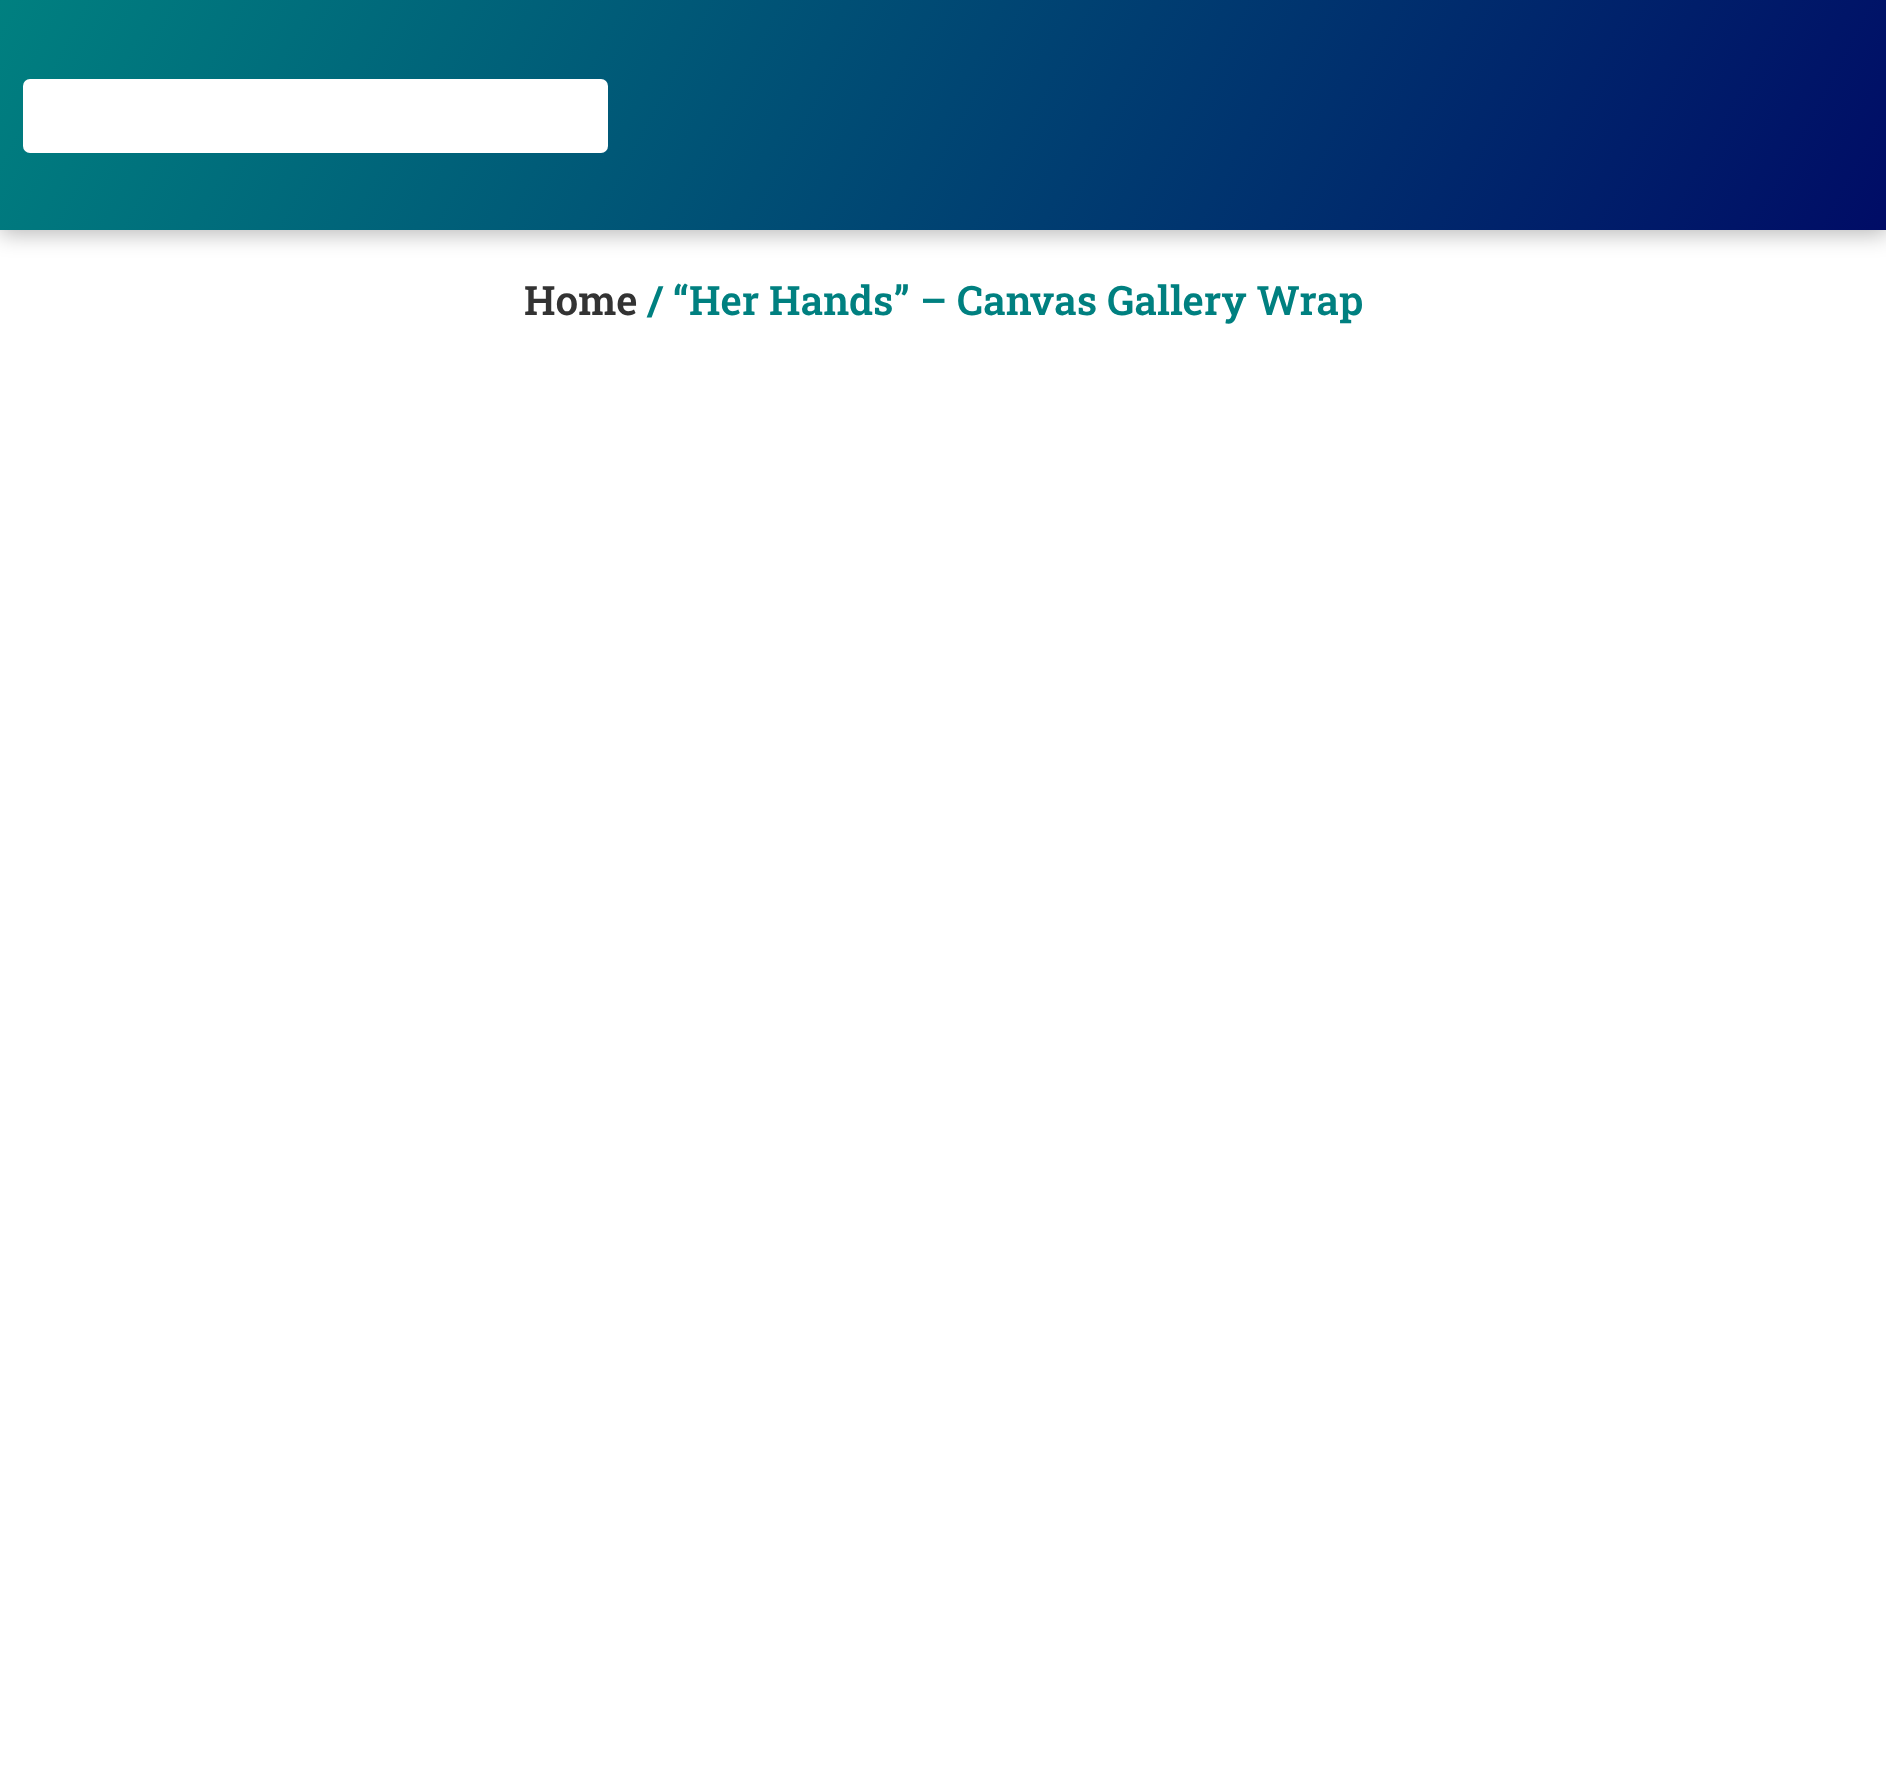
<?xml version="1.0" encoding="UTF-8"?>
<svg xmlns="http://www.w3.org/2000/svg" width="1886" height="1780">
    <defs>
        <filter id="blur1" x="-50%" y="-200%" width="200%" height="500%"><feGaussianBlur stdDeviation="11"/></filter>
        <linearGradient id="g1" gradientUnits="userSpaceOnUse" x1="160" y1="-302" x2="1727" y2="531"><stop offset="0" stop-color="#008080"/><stop offset="1" stop-color="#000C66"/></linearGradient>
    </defs>
    <rect width="100%" height="100%" fill="#FFFFFF"/>
    <rect x="0" y="5" width="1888" height="229" fill="#000000" fill-opacity="0.28" filter="url(#blur1)"/>
    <rect x="0" y="0" width="1886" height="230" fill="url(#g1)"/>
    <rect x="23" y="79" width="585" height="74" rx="7" fill="#FFFFFF"/>
    <text x="524" y="315" font-family="Roboto Slab" font-size="40.5" font-weight="600" fill="#333333">Home</text>
    <text x="647" y="315" font-family="Roboto Slab" font-size="40.5" font-weight="600" fill="#008080">/ “Her Hands” – Canvas Gallery Wrap</text>
</svg>
